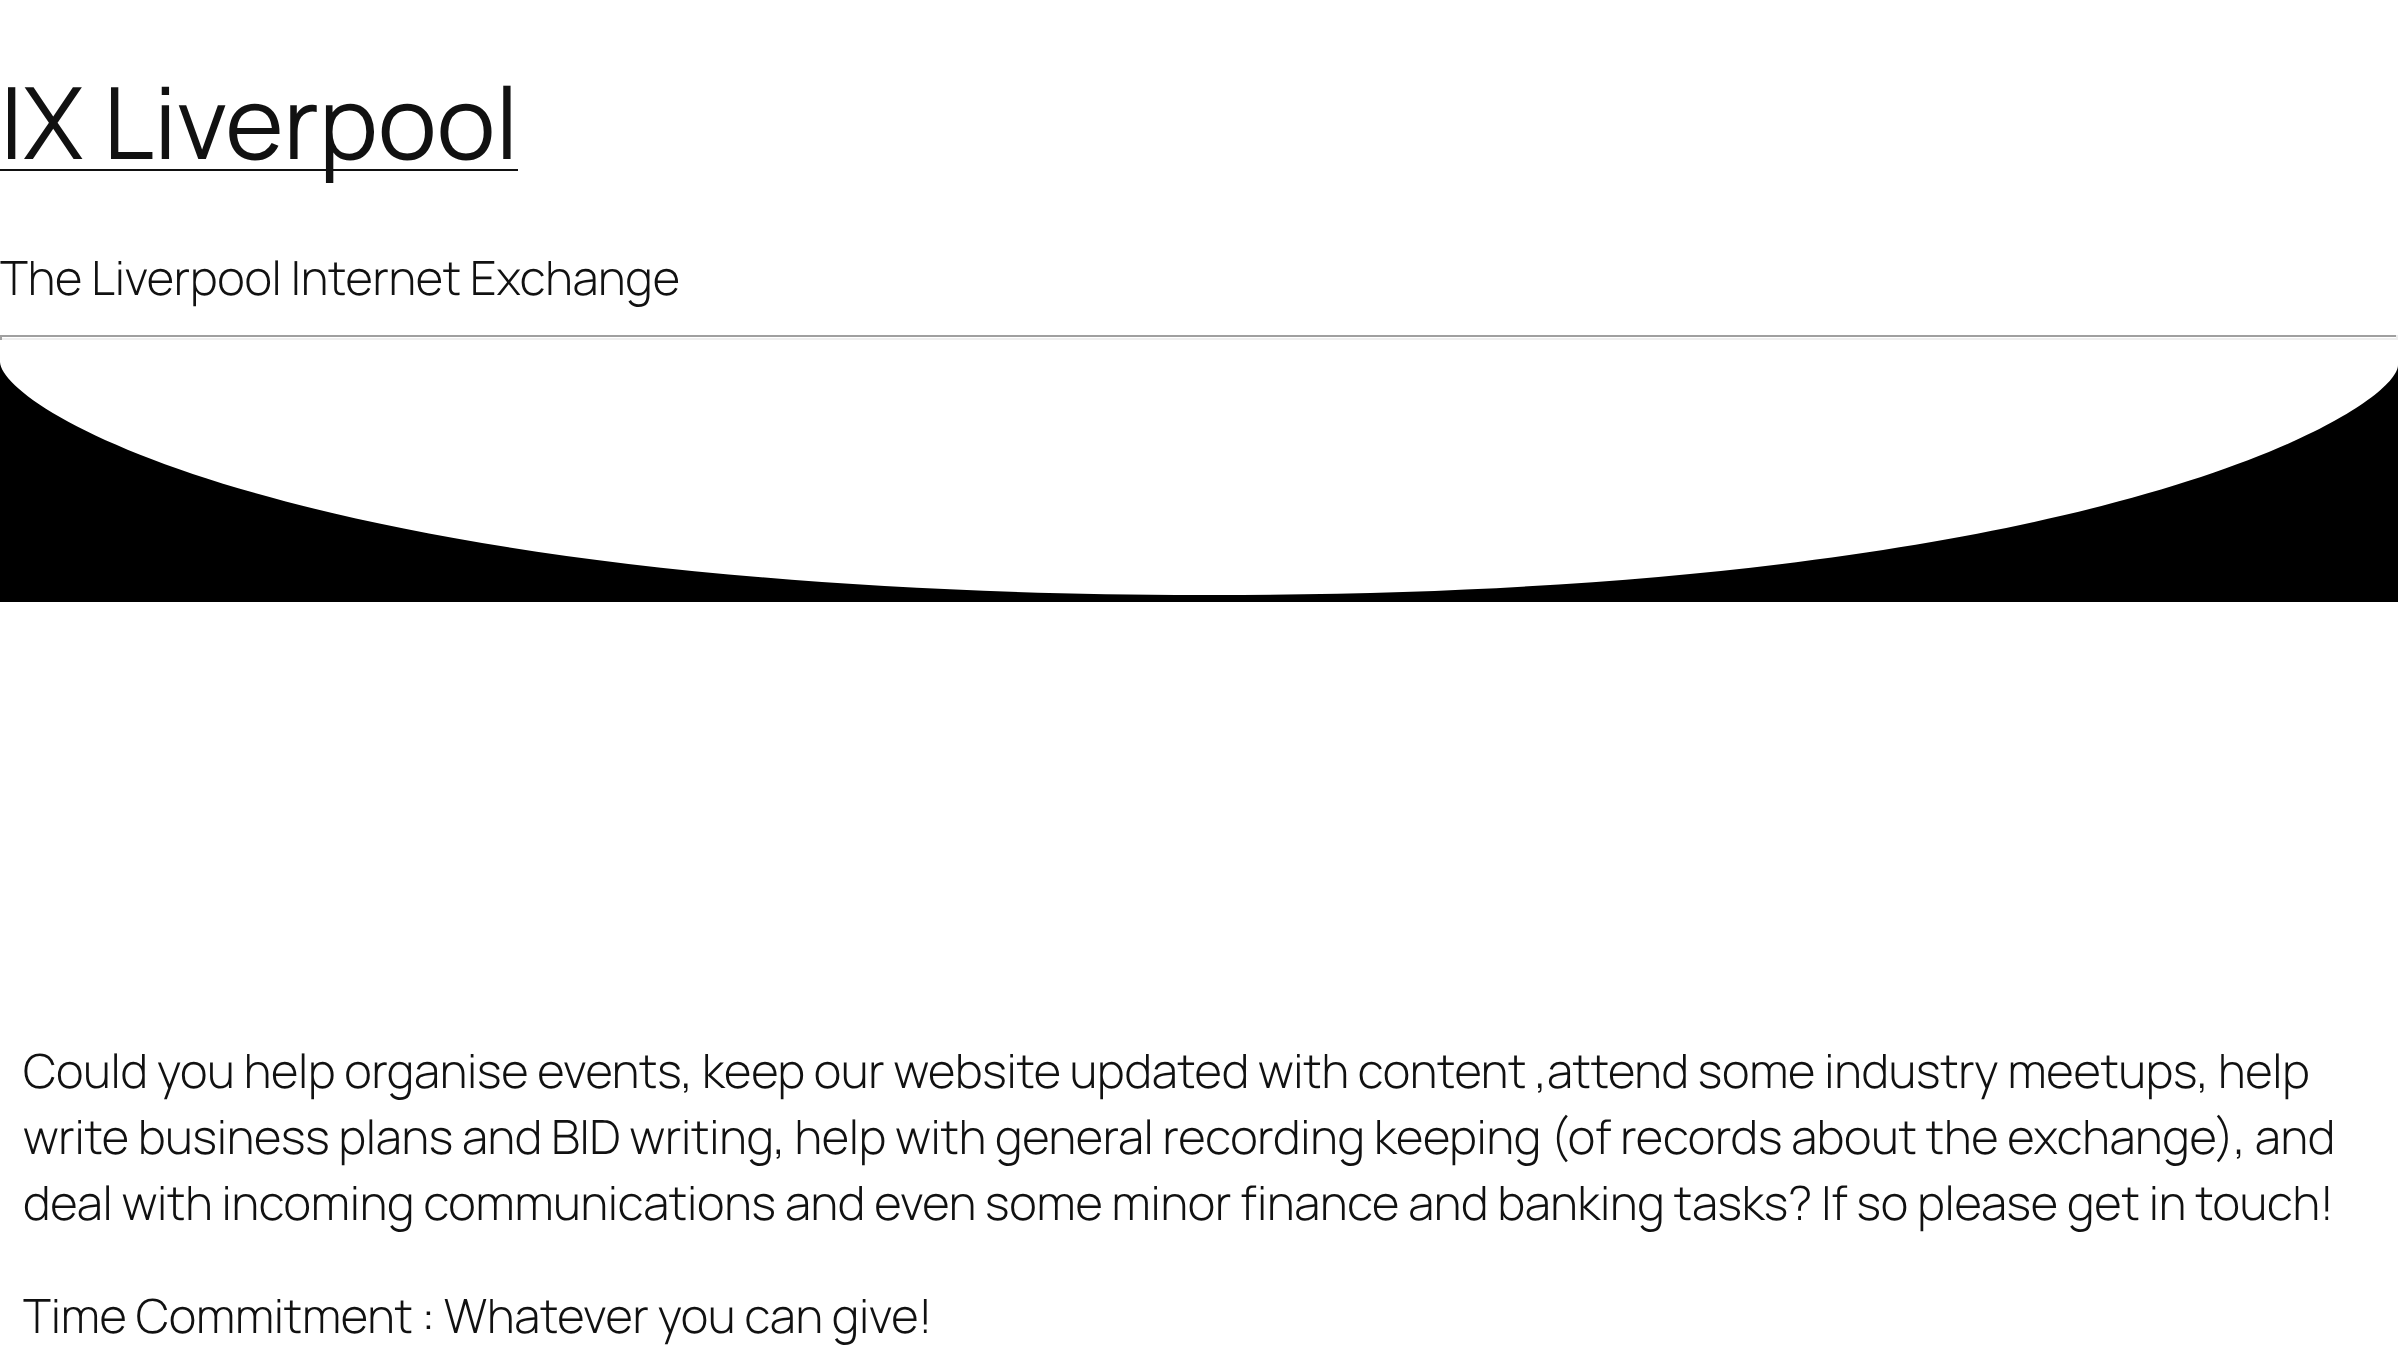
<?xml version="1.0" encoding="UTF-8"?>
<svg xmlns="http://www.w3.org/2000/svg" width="2398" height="1350">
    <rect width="100%" height="100%" fill="#FFFFFF"/>
    <rect x="0" y="169" width="518" height="2" fill="#111111"/>
    <text x="0" y="159" font-family="Manrope" font-size="99.75" letter-spacing="-0.23" fill="#111111">IX Liverpool</text>
    <text x="0" y="295" font-family="Manrope" font-size="47.1" font-weight="300" letter-spacing="-0.23" fill="#111111">The Liverpool Internet Exchange</text>
    <rect x="0" y="335" width="2398" height="2" fill="#9F9F9F"/>
    <rect x="2396" y="335" width="2" height="5" fill="#EEEEEE"/>
    <rect x="0" y="338" width="2398" height="2" fill="#EEEEEE"/>
    <rect x="0" y="335" width="2" height="5" fill="#9F9F9F"/>
    <path d="M 1199 595 C 304 593 2 410 0 362 V 602 H 2398 V 365 C 2398 409 2094 597 1199 595 Z" fill="#000000"/>
    <text font-family="Manrope" font-size="47.1" font-weight="300" letter-spacing="-0.23" fill="#111111">
        <tspan x="23" y="1088" word-spacing="-0.1">Could you help organise events, keep our website updated with content ,attend some industry meetups, help</tspan>
        <tspan x="23" y="1154" word-spacing="-0.1">write business plans and BID writing, help with general recording keeping (of records about the exchange), and</tspan>
        <tspan x="23" y="1220">deal with incoming communications and even some minor finance and banking tasks? If so please get in touch!</tspan>
    </text>
    <text x="23" y="1333" word-spacing="-0.1" font-family="Manrope" font-size="47.1" font-weight="300" letter-spacing="-0.23" fill="#111111">Time Commitment : Whatever you can give!</text>
</svg>
